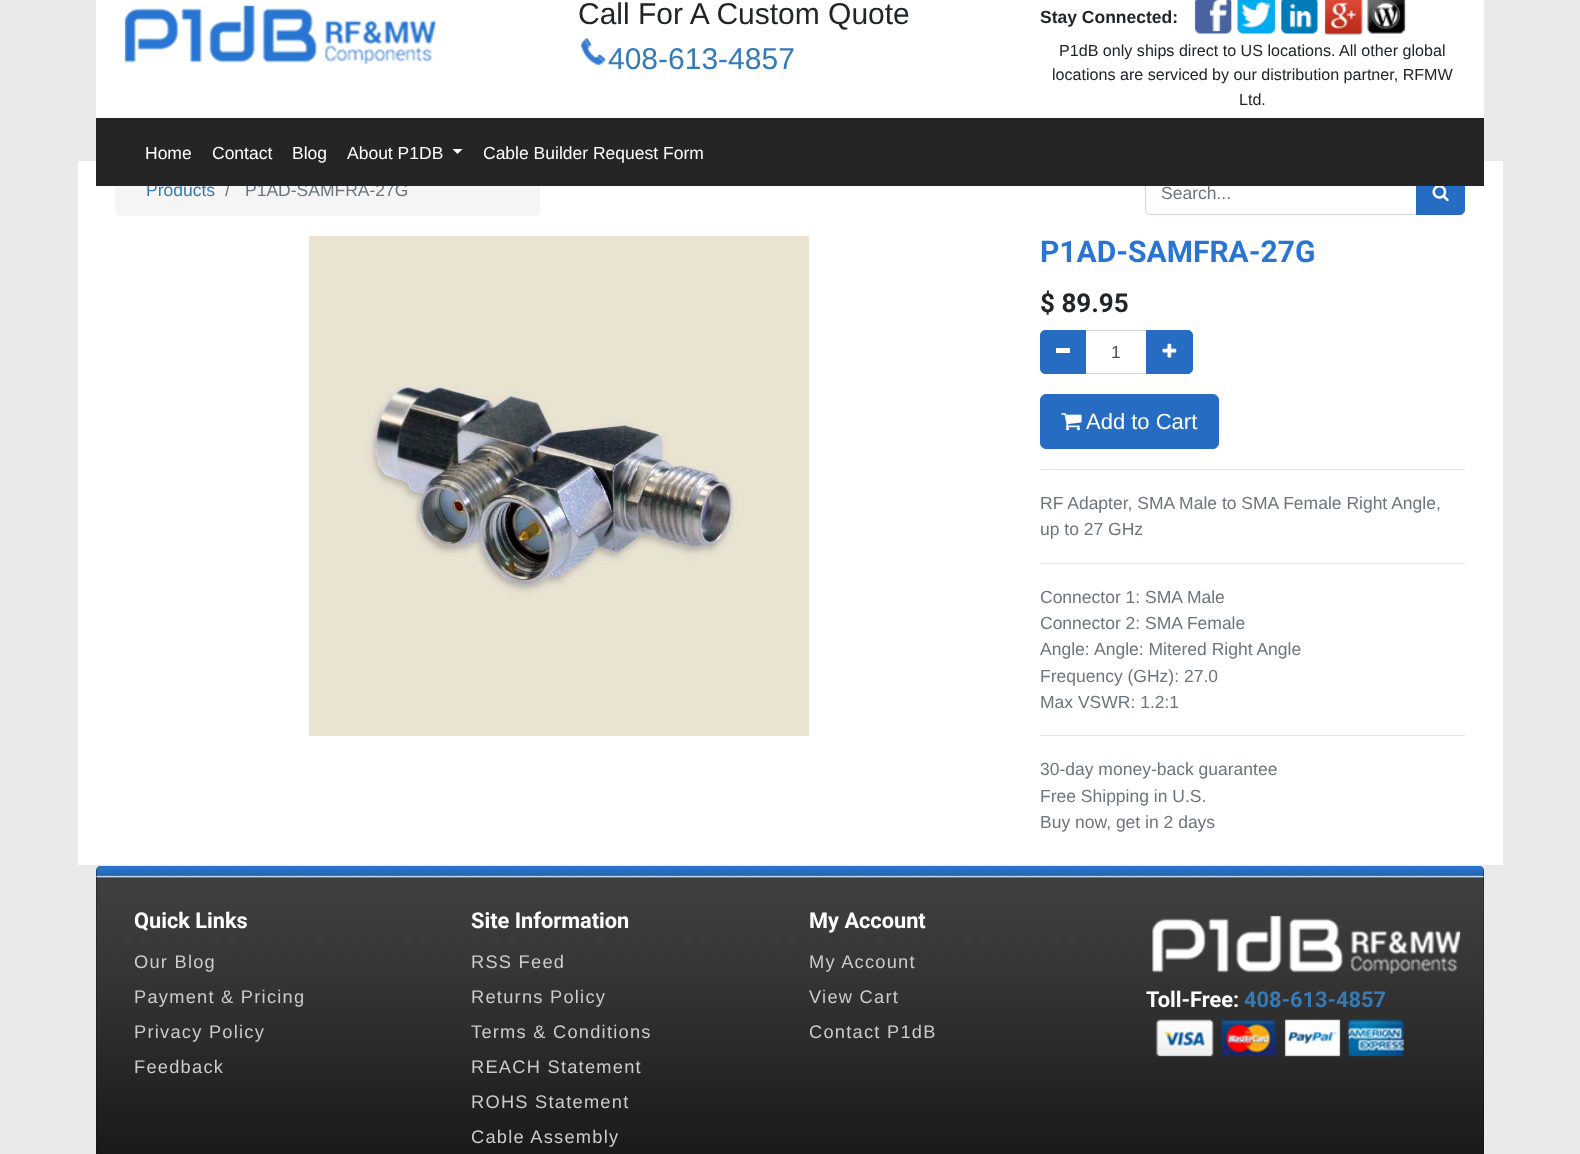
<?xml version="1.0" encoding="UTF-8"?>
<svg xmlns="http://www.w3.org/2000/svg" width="1580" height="1154">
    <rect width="100%" height="100%" fill="#EAEAEA"/>
    <rect x="96" y="0" width="1388" height="118" fill="#FFFFFF"/>
    <image x="124" y="5" width="312" height="59" href="img_01.png"/>
    <text x="578" y="24" font-family="Liberation Sans" font-size="30" fill="#212529">Call For A Custom Quote</text>
    <image x="581" y="38" width="25" height="27" href="img_02.png"/>
    <text x="608" y="69" font-family="Liberation Sans" font-size="30" fill="#337AB7">408-613-4857</text>
    <text x="1040" y="23" font-family="Liberation Sans" font-size="17.5" font-weight="700" fill="#212529">Stay Connected:</text>
    <image x="1194" y="0" width="212" height="35" href="img_03.png"/>
    <text x="1059" y="56" font-family="Liberation Sans" font-size="16.1" fill="#212529">P1dB only ships direct to US locations.</text>
    <text x="1339" y="56" font-family="Liberation Sans" font-size="16.1" fill="#212529">All other global</text>
    <text x="1052" y="80" font-family="Liberation Sans" font-size="16.1" fill="#212529">locations are serviced by our distribution partner, RFMW</text>
    <text x="1239" y="105" font-family="Liberation Sans" font-size="16.1" fill="#212529">Ltd.</text>
    <rect x="78" y="161" width="1425" height="704" fill="#FFFFFF"/>
    <rect x="115" y="171" width="425" height="45" rx="5" fill="#F5F5F5"/>
    <text x="146" y="196" font-family="Liberation Sans" font-size="17.5" fill="#337AB7">Products</text>
    <text x="225" y="196" font-family="Liberation Sans" font-size="17.5" fill="#6C757D">/</text>
    <text x="245" y="196" font-family="Liberation Sans" font-size="17.5" fill="#6C757D">P1AD-SAMFRA-27G</text>
    <path d="M 1150 171.5 H 1417.5 V 214.5 H 1150 C 1147.5 214.5 1145.5 212.5 1145.5 210 V 176 C 1145.5 173.5 1147.5 171.5 1150 171.5 Z" fill="none" stroke="#CED4DA"/>
    <path d="M 1416.5 171.5 H 1460 C 1462.5 171.5 1464.5 173.5 1464.5 176 V 210 C 1464.5 212.5 1462.5 214.5 1460 214.5 H 1416.5 Z" fill="#266CC2" stroke="#266CC2"/>
    <rect x="96" y="118" width="1388" height="68" fill="#252525"/>
    <text x="145" y="159" font-family="Liberation Sans" font-size="17.5" fill="#FFFFFF">Home</text>
    <text x="212" y="159" font-family="Liberation Sans" font-size="17.5" fill="#FFFFFF">Contact</text>
    <text x="292" y="159" font-family="Liberation Sans" font-size="17.5" fill="#FFFFFF">Blog</text>
    <text x="347" y="159" font-family="Liberation Sans" font-size="17.5" fill="#FFFFFF">About P1DB</text>
    <path d="M 452.5 149 H 462.5 L 457.5 154 Z" fill="#FFFFFF"/>
    <text x="483" y="159" font-family="Liberation Sans" font-size="17.5" fill="#FFFFFF">Cable Builder Request Form</text>
    <text x="1161" y="199" font-family="Liberation Sans" font-size="17.5" fill="#6C757D">Search...</text>
    <image x="1432" y="186" width="17" height="16" href="img_04.png"/>
    <image x="309" y="236" width="500" height="500" href="img_05.png"/>
    <text x="1040" y="262" font-family="Roboto" font-size="30" font-weight="700" fill="#2975D2">P1AD-SAMFRA-27G</text>
    <text x="1040" y="312" font-family="Roboto" font-size="26" font-weight="700" fill="#212529">$ 89.95</text>
    <rect x="1085.5" y="330.5" width="62" height="43" fill="none" stroke="#CED4DA"/>
    <path d="M 1045 330.5 H 1085.5 V 373.5 H 1045 C 1042.5 373.5 1040.5 371.5 1040.5 369 V 335 C 1040.5 332.5 1042.5 330.5 1045 330.5 Z" fill="#266CC2" stroke="#266CC2"/>
    <rect x="1056" y="348" width="14" height="5" fill="#FFFFFF"/>
    <text x="1111" y="358" font-family="Liberation Sans" font-size="17.5" fill="#495057">1</text>
    <path d="M 1146.5 330.5 H 1188 C 1190.5 330.5 1192.5 332.5 1192.5 335 V 369 C 1192.5 371.5 1190.5 373.5 1188 373.5 H 1146.5 Z" fill="#266CC2" stroke="#266CC2"/>
    <image x="1162" y="343" width="15" height="15" href="img_06.png"/>
    <rect x="1040.5" y="394.5" width="178" height="54" rx="5.5" fill="#266CC2" stroke="#266CC2"/>
    <image x="1061" y="413" width="21" height="18" href="img_07.png"/>
    <text x="1086" y="429" font-family="Liberation Sans" font-size="22" fill="#FFFFFF">Add to Cart</text>
    <rect x="1040" y="469" width="425" height="1" fill="#E6E6E6"/>
    <text font-family="Liberation Sans" font-size="17.5" fill="#6C757D">
        <tspan x="1040" y="509">RF Adapter, SMA Male to SMA Female Right Angle,</tspan>
        <tspan x="1040" y="535">up to 27 GHz</tspan>
    </text>
    <rect x="1040" y="563" width="425" height="1" fill="#E6E6E6"/>
    <text font-family="Liberation Sans" font-size="17.5" fill="#6C757D">
        <tspan x="1040" y="603">Connector 1: SMA Male</tspan>
        <tspan x="1040" y="629">Connector 2: SMA Female</tspan>
        <tspan x="1040" y="655">Angle:</tspan>
    </text>
    <text x="1094" y="655" font-family="Liberation Sans" font-size="17.5" fill="#6C757D">Angle: Mitered Right Angle</text>
    <text font-family="Liberation Sans" font-size="17.5" fill="#6C757D">
        <tspan x="1040" y="682">Frequency (GHz): 27.0</tspan>
        <tspan x="1040" y="708">Max VSWR: 1.2:1</tspan>
    </text>
    <rect x="1040" y="735" width="425" height="1" fill="#E6E6E6"/>
    <text font-family="Liberation Sans" font-size="17.5" fill="#6C757D">
        <tspan x="1040" y="775">30-day money-back guarantee</tspan>
        <tspan x="1040" y="802">Free Shipping in U.S.</tspan>
        <tspan x="1040" y="828">Buy now, get in 2 days</tspan>
    </text>
    <rect x="96" y="866" width="1388" height="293" rx="5" fill="#141414"/>
    <image x="96" y="866" width="1388" height="288" href="img_08.png"/>
    <text x="134" y="928" font-family="Roboto" font-size="21.75" font-weight="700" fill="#FFFFFF">Quick Links</text>
    <text font-family="Liberation Sans" font-size="18.25" letter-spacing="1.25" fill="#CCCCCC">
        <tspan x="134" y="968">Our Blog</tspan>
        <tspan x="134" y="1003">Payment &amp; Pricing</tspan>
        <tspan x="134" y="1038">Privacy Policy</tspan>
        <tspan x="134" y="1073">Feedback</tspan>
    </text>
    <text x="471" y="928" font-family="Roboto" font-size="21.75" font-weight="700" fill="#FFFFFF">Site Information</text>
    <text font-family="Liberation Sans" font-size="18.25" letter-spacing="1.25" fill="#CCCCCC">
        <tspan x="471" y="968">RSS Feed</tspan>
        <tspan x="471" y="1003">Returns Policy</tspan>
        <tspan x="471" y="1038">Terms &amp; Conditions</tspan>
        <tspan x="471" y="1073">REACH Statement</tspan>
        <tspan x="471" y="1108">ROHS Statement</tspan>
        <tspan x="471" y="1143">Cable Assembly</tspan>
    </text>
    <text x="809" y="928" font-family="Roboto" font-size="21.75" font-weight="700" fill="#FFFFFF">My Account</text>
    <text font-family="Liberation Sans" font-size="18.25" letter-spacing="1.25" fill="#CCCCCC">
        <tspan x="809" y="968">My Account</tspan>
        <tspan x="809" y="1003">View Cart</tspan>
        <tspan x="809" y="1038">Contact P1dB</tspan>
    </text>
    <image x="1152" y="915" width="309" height="59" href="img_09.png"/>
    <text x="1146" y="1007" font-family="Roboto" font-size="21.75" font-weight="700" fill="#FFFFFF">Toll-Free:</text>
    <text x="1244" y="1007" font-family="Roboto" font-size="21.75" font-weight="700" fill="#337AB7">408-613-4857</text>
    <image x="1156" y="1019" width="248" height="38" href="img_10.png"/>
</svg>
